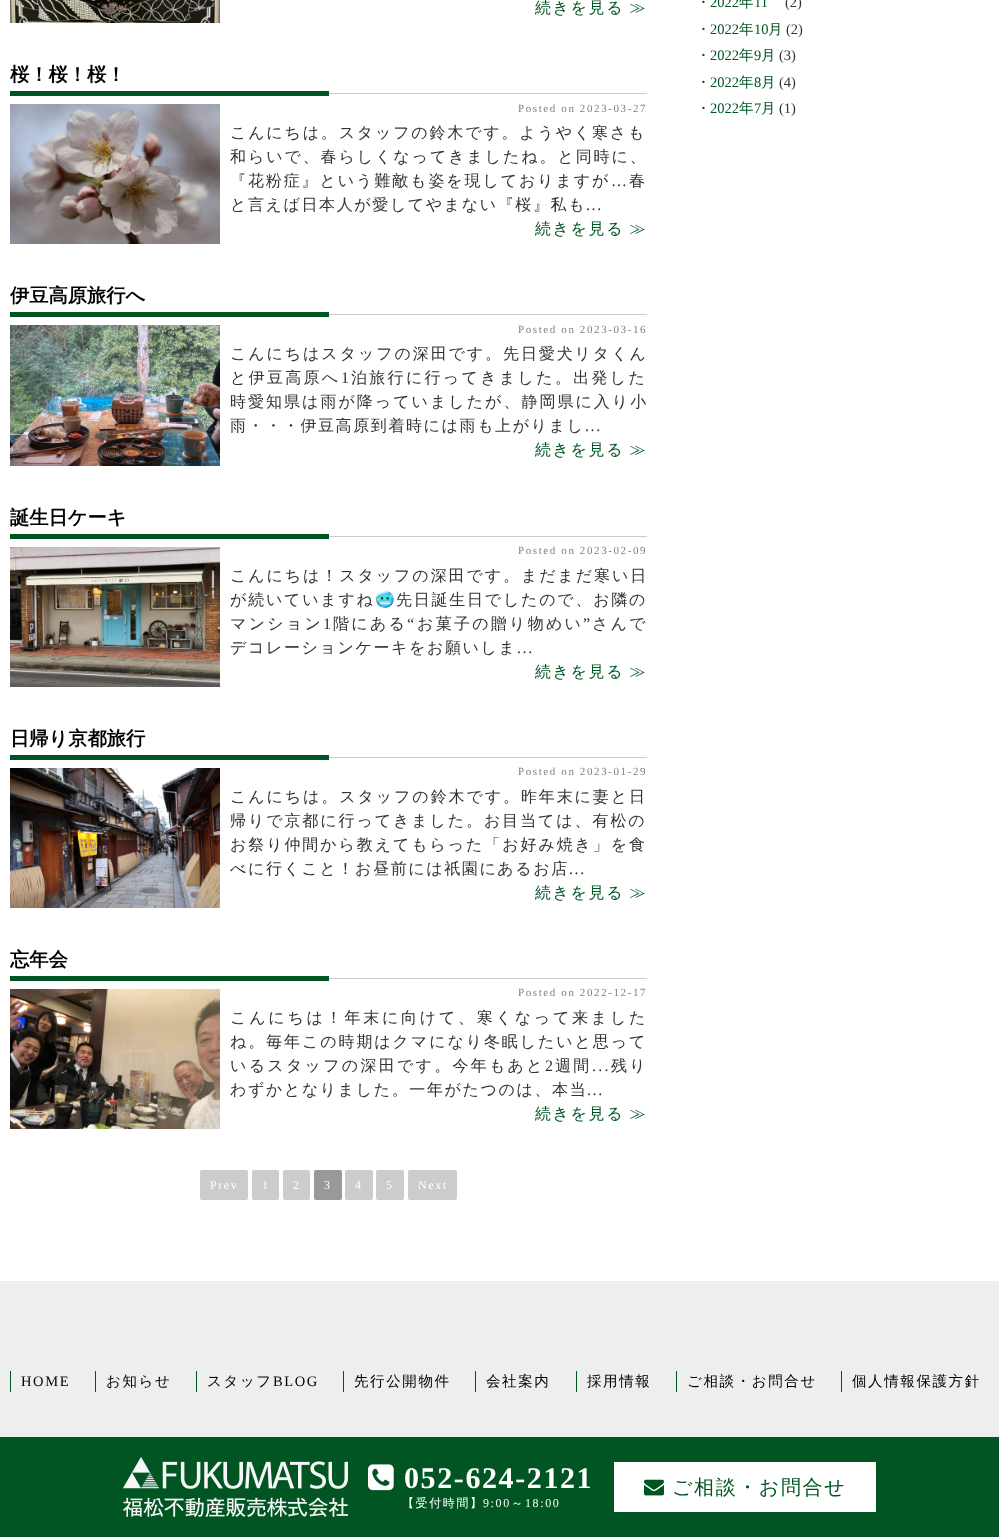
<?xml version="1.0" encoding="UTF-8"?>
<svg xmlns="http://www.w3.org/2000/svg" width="999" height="1537">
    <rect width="100%" height="100%" fill="#FFFFFF"/>
    <image x="10" y="0" width="210" height="23" href="img_01.png"/>
    <text x="535" y="13" word-spacing="-1" font-family="WenQuanYi Zen Hei" font-size="16" font-weight="500" letter-spacing="1.6" fill="#005522">続きを見る ≫</text>
    <rect x="329" y="93" width="318" height="1" fill="#CCCCCC"/>
    <text x="10" y="81" font-family="WenQuanYi Zen Hei" font-size="19.25" font-weight="700" fill="#000000">桜！桜！桜！</text>
    <rect x="10" y="91" width="319" height="5" fill="#005522"/>
    <image x="10" y="104" width="210" height="140" href="img_02.png"/>
    <text x="518" y="112" font-family="Liberation Serif" font-size="11" letter-spacing="1.6" fill="#808080">Posted on 2023-03-27</text>
    <text x="230" y="138" font-family="WenQuanYi Zen Hei" font-size="16" font-weight="500" letter-spacing="1.8" fill="#333333">こんにちは。スタッフの鈴木です。ようやく寒さも</text>
    <text font-family="WenQuanYi Zen Hei" font-size="16" font-weight="500" letter-spacing="1.9" fill="#333333">
        <tspan x="230" y="162">和らいで、春らしくなってきましたね。と同時に、</tspan>
        <tspan x="230" y="186">『花粉症』という難敵も姿を現しておりますが</tspan>
    </text>
    <text x="611" y="186" font-family="Liberation Serif" font-size="16" letter-spacing="1.9" fill="#333333">…</text>
    <text x="629" y="186" font-family="WenQuanYi Zen Hei" font-size="16" font-weight="500" letter-spacing="1.9" fill="#333333">春</text>
    <text x="230" y="210" font-family="WenQuanYi Zen Hei" font-size="16" font-weight="500" letter-spacing="1.6" fill="#333333">と言えば日本人が愛してやまない『桜』私も</text>
    <text x="586" y="210" font-family="Liberation Serif" font-size="16" letter-spacing="1.6" fill="#333333">...</text>
    <text x="535" y="234" word-spacing="-1" font-family="WenQuanYi Zen Hei" font-size="16" font-weight="500" letter-spacing="1.6" fill="#005522">続きを見る ≫</text>
    <rect x="329" y="314" width="318" height="1" fill="#CCCCCC"/>
    <text x="10" y="302" font-family="WenQuanYi Zen Hei" font-size="19.25" font-weight="700" fill="#000000">伊豆高原旅行へ</text>
    <rect x="10" y="312" width="319" height="5" fill="#005522"/>
    <image x="10" y="325" width="210" height="141" href="img_03.png"/>
    <text x="518" y="333" font-family="Liberation Serif" font-size="11" letter-spacing="1.6" fill="#808080">Posted on 2023-03-16</text>
    <text x="230" y="359" font-family="WenQuanYi Zen Hei" font-size="16" font-weight="500" letter-spacing="1.9" fill="#333333">こんにちはスタッフの深田です。先日愛犬リタくん</text>
    <text x="230" y="383" font-family="WenQuanYi Zen Hei" font-size="16" font-weight="500" letter-spacing="2.3" fill="#333333">と伊豆高原へ</text>
    <text x="341" y="383" font-family="Liberation Serif" font-size="16" letter-spacing="2.3" fill="#333333">1</text>
    <text x="351" y="383" font-family="WenQuanYi Zen Hei" font-size="16" font-weight="500" letter-spacing="2.3" fill="#333333">泊旅行に行ってきました。出発した</text>
    <text x="230" y="407" font-family="WenQuanYi Zen Hei" font-size="16" font-weight="500" letter-spacing="2" fill="#333333">時愛知県は雨が降っていましたが、静岡県に入り小</text>
    <text x="230" y="431" font-family="WenQuanYi Zen Hei" font-size="16" font-weight="500" letter-spacing="1.6" fill="#333333">雨・・・伊豆高原到着時には雨も上がりまし</text>
    <text x="585" y="431" font-family="Liberation Serif" font-size="16" letter-spacing="1.6" fill="#333333">...</text>
    <text x="535" y="455" word-spacing="-1" font-family="WenQuanYi Zen Hei" font-size="16" font-weight="500" letter-spacing="1.6" fill="#005522">続きを見る ≫</text>
    <rect x="329" y="536" width="318" height="1" fill="#CCCCCC"/>
    <text x="10" y="524" font-family="WenQuanYi Zen Hei" font-size="19.25" font-weight="700" fill="#000000">誕生日ケーキ</text>
    <rect x="10" y="534" width="319" height="5" fill="#005522"/>
    <image x="10" y="547" width="210" height="140" href="img_04.png"/>
    <text x="518" y="554" font-family="Liberation Serif" font-size="11" letter-spacing="1.6" fill="#808080">Posted on 2023-02-09</text>
    <text x="230" y="581" font-family="WenQuanYi Zen Hei" font-size="16" font-weight="500" letter-spacing="1.9" fill="#333333">こんにちは！スタッフの深田です。まだまだ寒い日</text>
    <text x="230" y="605" font-family="WenQuanYi Zen Hei" font-size="16" font-weight="500" letter-spacing="1.75" fill="#333333">が続いていますね</text>
    <text x="375" y="605" font-family="Noto Color Emoji" font-size="16" letter-spacing="1.75" fill="#333333">🥶</text>
    <text x="396" y="605" font-family="WenQuanYi Zen Hei" font-size="16" font-weight="500" letter-spacing="1.75" fill="#333333">先日誕生日でしたので、お隣の</text>
    <text x="230" y="629" font-family="WenQuanYi Zen Hei" font-size="16" font-weight="500" letter-spacing="2.25" fill="#333333">マンション</text>
    <text x="323" y="629" font-family="Liberation Serif" font-size="16" letter-spacing="2.25" fill="#333333">1</text>
    <text x="333" y="629" font-family="WenQuanYi Zen Hei" font-size="16" font-weight="500" letter-spacing="2.25" fill="#333333">階にある</text>
    <text x="407" y="629" font-family="Liberation Serif" font-size="16" letter-spacing="2.25" fill="#333333">“</text>
    <text x="417" y="629" font-family="WenQuanYi Zen Hei" font-size="16" font-weight="500" letter-spacing="2.25" fill="#333333">お菓子の贈り物めい</text>
    <text x="583" y="629" font-family="Liberation Serif" font-size="16" letter-spacing="2.25" fill="#333333">”</text>
    <text x="592" y="629" font-family="WenQuanYi Zen Hei" font-size="16" font-weight="500" letter-spacing="2.25" fill="#333333">さんで</text>
    <text x="230" y="653" font-family="WenQuanYi Zen Hei" font-size="16" font-weight="500" letter-spacing="1.6" fill="#333333">デコレーションケーキをお願いしま</text>
    <text x="517" y="653" font-family="Liberation Serif" font-size="16" letter-spacing="1.6" fill="#333333">...</text>
    <text x="535" y="677" word-spacing="-1" font-family="WenQuanYi Zen Hei" font-size="16" font-weight="500" letter-spacing="1.6" fill="#005522">続きを見る ≫</text>
    <rect x="329" y="757" width="318" height="1" fill="#CCCCCC"/>
    <text x="10" y="745" font-family="WenQuanYi Zen Hei" font-size="19.25" font-weight="700" fill="#000000">日帰り京都旅行</text>
    <rect x="10" y="755" width="319" height="5" fill="#005522"/>
    <image x="10" y="768" width="210" height="140" href="img_05.png"/>
    <text x="518" y="775" font-family="Liberation Serif" font-size="11" letter-spacing="1.6" fill="#808080">Posted on 2023-01-29</text>
    <text font-family="WenQuanYi Zen Hei" font-size="16" font-weight="500" letter-spacing="1.9" fill="#333333">
        <tspan x="230" y="802">こんにちは。スタッフの鈴木です。昨年末に妻と日</tspan>
        <tspan x="230" y="826">帰りで京都に行ってきました。お目当ては、有松の</tspan>
        <tspan x="230" y="850">お祭り仲間から教えてもらった「お好み焼き」を食</tspan>
    </text>
    <text x="230" y="874" font-family="WenQuanYi Zen Hei" font-size="16" font-weight="500" letter-spacing="1.6" fill="#333333">べに行くこと！お昼前には祇園にあるお店</text>
    <text x="569" y="874" font-family="Liberation Serif" font-size="16" letter-spacing="1.6" fill="#333333">...</text>
    <text x="535" y="898" word-spacing="-1" font-family="WenQuanYi Zen Hei" font-size="16" font-weight="500" letter-spacing="1.6" fill="#005522">続きを見る ≫</text>
    <rect x="329" y="978" width="318" height="1" fill="#CCCCCC"/>
    <text x="10" y="966" font-family="WenQuanYi Zen Hei" font-size="19.25" font-weight="700" fill="#000000">忘年会</text>
    <rect x="10" y="976" width="319" height="5" fill="#005522"/>
    <image x="10" y="989" width="210" height="140" href="img_06.png"/>
    <text x="518" y="996" font-family="Liberation Serif" font-size="11" letter-spacing="1.6" fill="#808080">Posted on 2022-12-17</text>
    <text x="230" y="1023" font-family="WenQuanYi Zen Hei" font-size="16" font-weight="500" letter-spacing="2.75" fill="#333333">こんにちは！年末に向けて、寒くなって来ました</text>
    <text x="230" y="1047" font-family="WenQuanYi Zen Hei" font-size="16" font-weight="500" letter-spacing="1.9" fill="#333333">ね。毎年この時期はクマになり冬眠したいと思って</text>
    <text x="230" y="1071" font-family="WenQuanYi Zen Hei" font-size="16" font-weight="500" letter-spacing="2.25" fill="#333333">いるスタッフの深田です。今年もあと</text>
    <text x="545" y="1071" font-family="Liberation Serif" font-size="16" letter-spacing="2.25" fill="#333333">2</text>
    <text x="555" y="1071" font-family="WenQuanYi Zen Hei" font-size="16" font-weight="500" letter-spacing="2.25" fill="#333333">週間</text>
    <text x="592" y="1071" font-family="Liberation Serif" font-size="16" letter-spacing="2.25" fill="#333333">...</text>
    <text x="611" y="1071" font-family="WenQuanYi Zen Hei" font-size="16" font-weight="500" letter-spacing="2.25" fill="#333333">残り</text>
    <text x="230" y="1095" font-family="WenQuanYi Zen Hei" font-size="16" font-weight="500" letter-spacing="1.6" fill="#333333">わずかとなりました。一年がたつのは、本当</text>
    <text x="587" y="1095" font-family="Liberation Serif" font-size="16" letter-spacing="1.6" fill="#333333">...</text>
    <text x="535" y="1119" word-spacing="-1" font-family="WenQuanYi Zen Hei" font-size="16" font-weight="500" letter-spacing="1.6" fill="#005522">続きを見る ≫</text>
    <rect x="200" y="1170" width="48" height="30" rx="2" fill="#CCCCCC"/>
    <text x="210" y="1189" font-family="Liberation Serif" font-size="12" letter-spacing="1.6" fill="#FFFFFF">Prev</text>
    <rect x="252" y="1170" width="27" height="30" rx="2" fill="#CCCCCC"/>
    <text x="262" y="1189" font-family="Liberation Serif" font-size="12" letter-spacing="1.6" fill="#FFFFFF">1</text>
    <rect x="283" y="1170" width="27" height="30" rx="2" fill="#CCCCCC"/>
    <text x="293" y="1189" font-family="Liberation Serif" font-size="12" letter-spacing="1.6" fill="#FFFFFF">2</text>
    <rect x="314" y="1170" width="28" height="30" rx="2" fill="#999999"/>
    <text x="324" y="1189" font-family="Liberation Serif" font-size="12" letter-spacing="1.6" fill="#FFFFFF">3</text>
    <rect x="345" y="1170" width="28" height="30" rx="2" fill="#CCCCCC"/>
    <text x="355" y="1189" font-family="Liberation Serif" font-size="12" letter-spacing="1.6" fill="#FFFFFF">4</text>
    <rect x="376" y="1170" width="28" height="30" rx="2" fill="#CCCCCC"/>
    <text x="386" y="1189" font-family="Liberation Serif" font-size="12" letter-spacing="1.6" fill="#FFFFFF">5</text>
    <rect x="408" y="1170" width="49" height="30" rx="2" fill="#CCCCCC"/>
    <text x="418" y="1189" font-family="Liberation Serif" font-size="12" letter-spacing="1.6" fill="#FFFFFF">Next</text>
    <text x="696" y="7" font-family="WenQuanYi Zen Hei" font-size="14.5" font-weight="500" fill="#333333">・</text>
    <text x="710" y="7" font-family="Liberation Serif" font-size="14.5" fill="#005522">2022</text>
    <text x="739" y="7" font-family="WenQuanYi Zen Hei" font-size="14.5" font-weight="500" fill="#005522">年</text>
    <text x="754" y="7" font-family="Liberation Serif" font-size="14.5" fill="#005522">11</text>
    <text x="785" y="7" font-family="Liberation Serif" font-size="14.5" fill="#333333">(2)</text>
    <text x="696" y="34" font-family="WenQuanYi Zen Hei" font-size="14.5" font-weight="500" fill="#333333">・</text>
    <text x="710" y="34" font-family="Liberation Serif" font-size="14.5" fill="#005522">2022</text>
    <text x="739" y="34" font-family="WenQuanYi Zen Hei" font-size="14.5" font-weight="500" fill="#005522">年</text>
    <text x="754" y="34" font-family="Liberation Serif" font-size="14.5" fill="#005522">10</text>
    <text x="768" y="34" font-family="WenQuanYi Zen Hei" font-size="14.5" font-weight="500" fill="#005522">月</text>
    <text x="786" y="34" font-family="Liberation Serif" font-size="14.5" fill="#333333">(2)</text>
    <text x="696" y="60" font-family="WenQuanYi Zen Hei" font-size="14.5" font-weight="500" fill="#333333">・</text>
    <text x="710" y="60" font-family="Liberation Serif" font-size="14.5" fill="#005522">2022</text>
    <text x="739" y="60" font-family="WenQuanYi Zen Hei" font-size="14.5" font-weight="500" fill="#005522">年</text>
    <text x="754" y="60" font-family="Liberation Serif" font-size="14.5" fill="#005522">9</text>
    <text x="761" y="60" font-family="WenQuanYi Zen Hei" font-size="14.5" font-weight="500" fill="#005522">月</text>
    <text x="779" y="60" font-family="Liberation Serif" font-size="14.5" fill="#333333">(3)</text>
    <text x="696" y="87" font-family="WenQuanYi Zen Hei" font-size="14.5" font-weight="500" fill="#333333">・</text>
    <text x="710" y="87" font-family="Liberation Serif" font-size="14.5" fill="#005522">2022</text>
    <text x="739" y="87" font-family="WenQuanYi Zen Hei" font-size="14.5" font-weight="500" fill="#005522">年</text>
    <text x="754" y="87" font-family="Liberation Serif" font-size="14.5" fill="#005522">8</text>
    <text x="761" y="87" font-family="WenQuanYi Zen Hei" font-size="14.5" font-weight="500" fill="#005522">月</text>
    <text x="779" y="87" font-family="Liberation Serif" font-size="14.5" fill="#333333">(4)</text>
    <text x="696" y="113" font-family="WenQuanYi Zen Hei" font-size="14.5" font-weight="500" fill="#333333">・</text>
    <text x="710" y="113" font-family="Liberation Serif" font-size="14.5" fill="#005522">2022</text>
    <text x="739" y="113" font-family="WenQuanYi Zen Hei" font-size="14.5" font-weight="500" fill="#005522">年</text>
    <text x="754" y="113" font-family="Liberation Serif" font-size="14.5" fill="#005522">7</text>
    <text x="761" y="113" font-family="WenQuanYi Zen Hei" font-size="14.5" font-weight="500" fill="#005522">月</text>
    <text x="779" y="113" font-family="Liberation Serif" font-size="14.5" fill="#333333">(1)</text>
    <rect x="0" y="1281" width="999" height="156" fill="#EEEEEE"/>
    <rect x="10" y="1371" width="1" height="21" fill="#005522"/>
    <text x="21" y="1386" font-family="Liberation Serif" font-size="14.5" letter-spacing="1.6" fill="#000000">HOME</text>
    <rect x="95" y="1371" width="1" height="21" fill="#005522"/>
    <text x="106" y="1386" font-family="WenQuanYi Zen Hei" font-size="14.5" font-weight="500" letter-spacing="1.6" fill="#000000">お知らせ</text>
    <rect x="196" y="1371" width="1" height="21" fill="#005522"/>
    <text x="207" y="1386" font-family="WenQuanYi Zen Hei" font-size="14.5" font-weight="500" letter-spacing="1.6" fill="#000000">スタッフ</text>
    <text x="273" y="1386" font-family="Liberation Serif" font-size="14.5" letter-spacing="1.6" fill="#000000">BLOG</text>
    <rect x="343" y="1371" width="1" height="21" fill="#005522"/>
    <text x="354" y="1386" font-family="WenQuanYi Zen Hei" font-size="14.5" font-weight="500" letter-spacing="1.6" fill="#000000">先行公開物件</text>
    <rect x="475" y="1371" width="1" height="21" fill="#005522"/>
    <text x="486" y="1386" font-family="WenQuanYi Zen Hei" font-size="14.5" font-weight="500" letter-spacing="1.6" fill="#000000">会社案内</text>
    <rect x="576" y="1371" width="1" height="21" fill="#005522"/>
    <text x="587" y="1386" font-family="WenQuanYi Zen Hei" font-size="14.5" font-weight="500" letter-spacing="1.6" fill="#000000">採用情報</text>
    <rect x="676" y="1371" width="1" height="21" fill="#005522"/>
    <text x="687" y="1386" font-family="WenQuanYi Zen Hei" font-size="14.5" font-weight="500" letter-spacing="1.6" fill="#000000">ご相談・お問合せ</text>
    <rect x="841" y="1371" width="1" height="21" fill="#005522"/>
    <text x="852" y="1386" font-family="WenQuanYi Zen Hei" font-size="14.5" font-weight="500" letter-spacing="1.6" fill="#000000">個人情報保護方針</text>
    <rect x="0" y="1437" width="999" height="100" fill="#005522"/>
    <image x="123" y="1457" width="225" height="60" href="img_07.png"/>
    <image x="368" y="1464" width="26" height="27" href="img_08.png"/>
    <text x="404" y="1488" font-family="Liberation Serif" font-size="30" font-weight="700" letter-spacing="1.6" fill="#FFFFFF">052-624-2121</text>
    <text x="402" y="1507" font-family="WenQuanYi Zen Hei" font-size="12" font-weight="500" letter-spacing="1.6" fill="#FFFFFF">【受付時間】</text>
    <text x="483" y="1507" font-family="Liberation Serif" font-size="12" letter-spacing="1.6" fill="#FFFFFF">9:00</text>
    <text x="511" y="1507" font-family="WenQuanYi Zen Hei" font-size="12" font-weight="500" letter-spacing="1.6" fill="#FFFFFF">～</text>
    <text x="525" y="1507" font-family="Liberation Serif" font-size="12" letter-spacing="1.6" fill="#FFFFFF">18:00</text>
    <rect x="614" y="1462" width="262" height="50" fill="#FFFFFF"/>
    <image x="644" y="1479" width="20" height="17" href="img_09.png"/>
    <text x="672" y="1494" font-family="WenQuanYi Zen Hei" font-size="20" font-weight="500" letter-spacing="1.6" fill="#005522">ご相談・お問合せ</text>
</svg>
